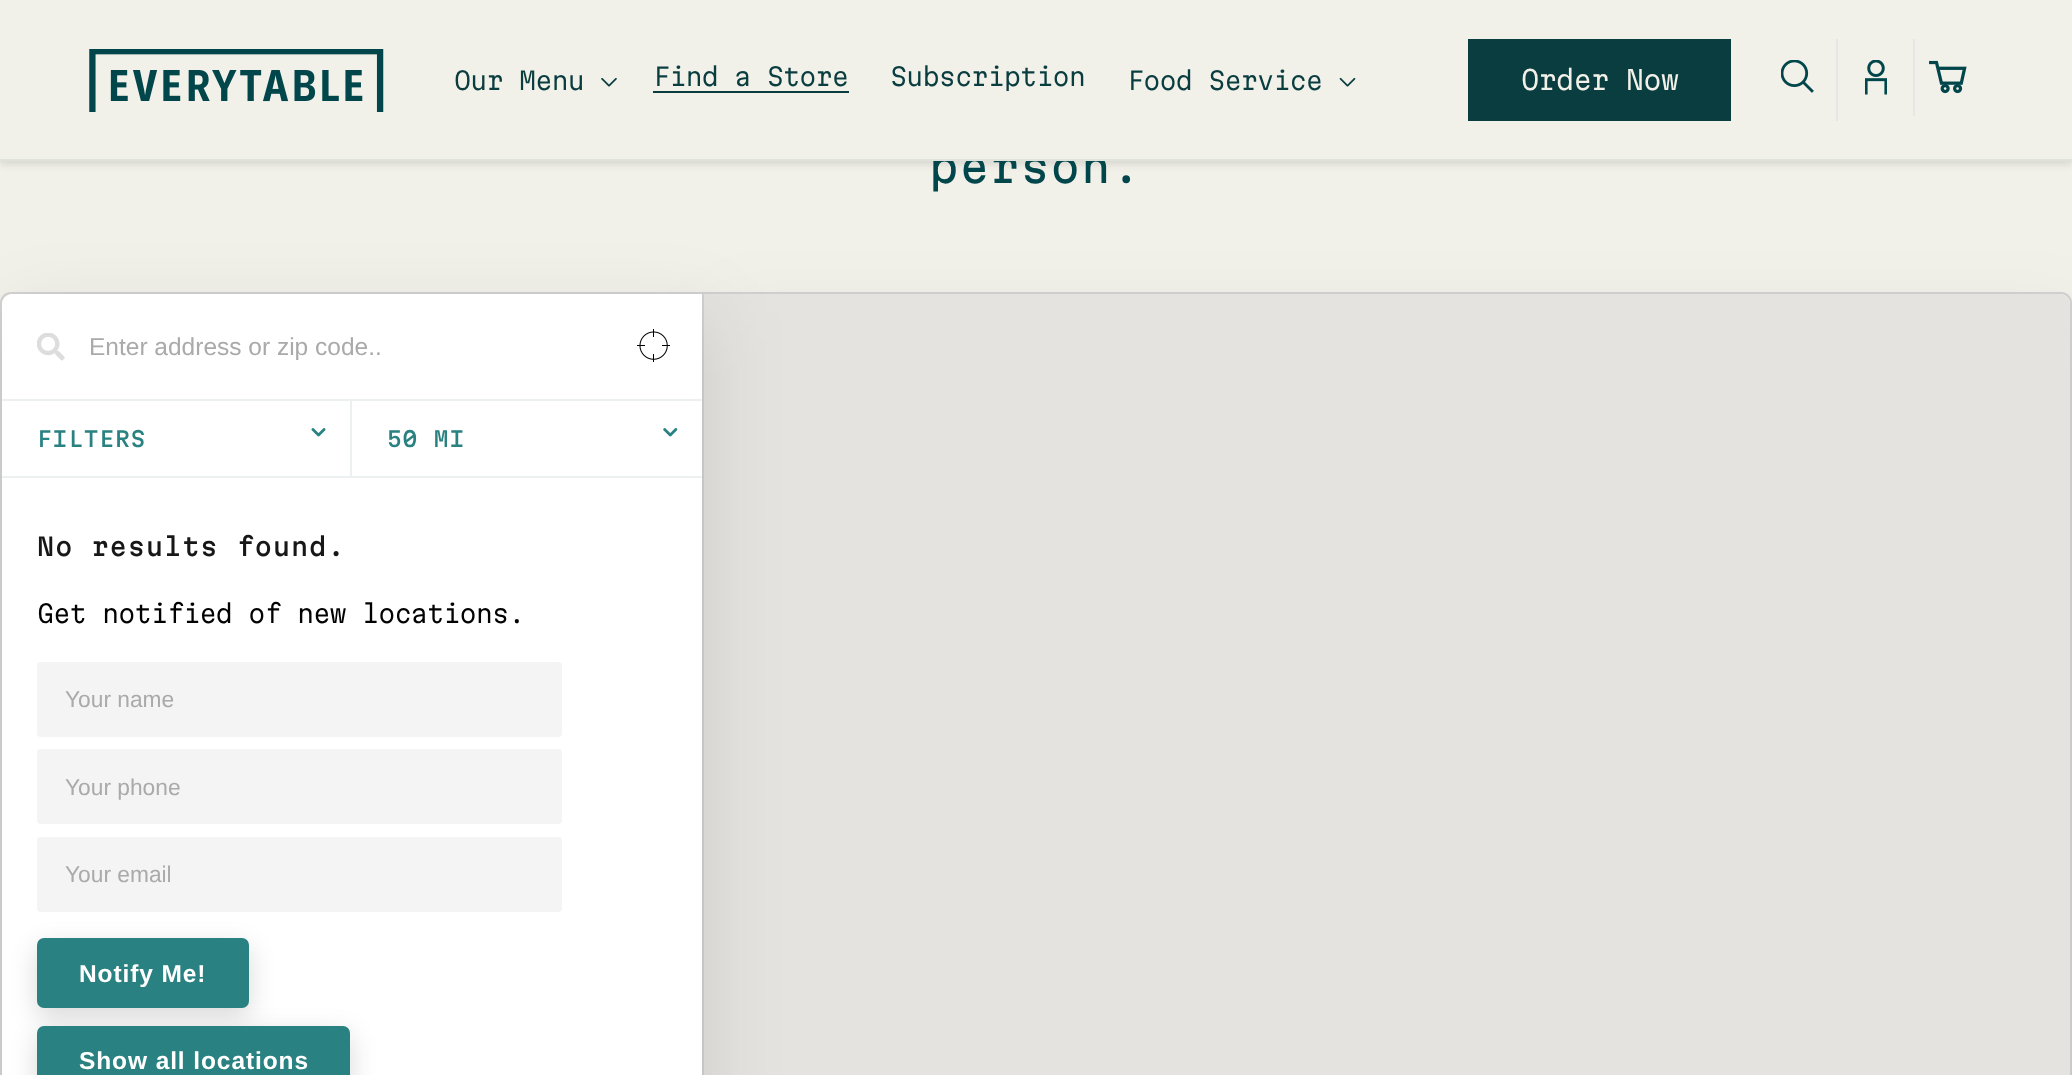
<?xml version="1.0" encoding="UTF-8"?>
<svg xmlns="http://www.w3.org/2000/svg" width="2072" height="1075">
    <defs>
        <filter id="blur1" x="-50%" y="-200%" width="200%" height="500%"><feGaussianBlur stdDeviation="3.5"/></filter>
        <filter id="blur2" x="-50%" y="-200%" width="200%" height="500%"><feGaussianBlur stdDeviation="37"/></filter>
        <filter id="blur3" x="-50%" y="-200%" width="200%" height="500%"><feGaussianBlur stdDeviation="13"/></filter>
    </defs>
    <rect width="100%" height="100%" fill="#F2F1E9"/>
    <rect x="0" y="4" width="2072" height="161" fill="#000000" fill-opacity="0.1" filter="url(#blur1)"/>
    <text x="929" y="183" font-family="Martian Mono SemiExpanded" font-size="42" letter-spacing="1" fill="#00464B">person.</text>
    <rect x="0" y="0" width="2072" height="159" fill="#F2F1E9"/>
    <rect x="0" y="159" width="2072" height="2" fill="#DFE3DB"/>
    <image x="89" y="49" width="295" height="63" href="img_01.png"/>
    <text x="454" y="90" font-family="Martian Mono SemiExpanded" font-size="24.5" font-weight="300" letter-spacing="-0.9" fill="#0A3D3F">Our Menu</text>
    <image x="601" y="78" width="16" height="9" href="img_02.png"/>
    <text x="653" y="86" font-family="Martian Mono SemiExpanded" font-size="24.5" font-weight="300" letter-spacing="-0.9" fill="#0A3D3F">Find a Store</text>
    <rect x="653" y="91" width="196" height="2" fill="#0A3D3F"/>
    <text x="890" y="86" font-family="Martian Mono SemiExpanded" font-size="24.5" font-weight="300" letter-spacing="-0.9" fill="#0A3D3F">Subscription</text>
    <text x="1127" y="90" font-family="Martian Mono SemiExpanded" font-size="24.5" font-weight="300" letter-spacing="-0.9" fill="#0A3D3F">Food Service</text>
    <image x="1339" y="77" width="17" height="10" href="img_03.png"/>
    <rect x="1468" y="39" width="263" height="82" fill="#0A3D3F"/>
    <text x="1521" y="90" font-family="Martian Mono SemiExpanded" font-size="26.25" font-weight="300" letter-spacing="-0.9" fill="#F2F1E9">Order Now</text>
    <rect x="1836" y="39" width="2" height="82" fill="#E6E6E6"/>
    <image x="1781" y="60" width="33" height="33" href="img_04.png"/>
    <rect x="1913" y="39" width="2" height="77" fill="#E6E6E6"/>
    <image x="1865" y="60" width="22" height="35" href="img_05.png"/>
    <image x="1929" y="60" width="38" height="34" href="img_06.png"/>
    <rect x="1" y="293" width="2070" height="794" rx="10" fill="none" stroke="#D1D1D1" stroke-width="2"/>
    <rect x="712" y="312" width="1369" height="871" rx="11" fill="#000000" fill-opacity="0.05" filter="url(#blur2)"/>
    <rect x="702" y="294" width="2" height="781" fill="#D1D1D1"/>
    <path d="M 704 294 H 2059 C 2065 294 2070 299 2070 305 V 1075 C 2070 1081 2065 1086 2059 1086 H 704 Z" fill="#E5E3DF"/>
    <rect x="12" y="312" width="700" height="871" rx="11" fill="#000000" fill-opacity="0.09" filter="url(#blur2)"/>
    <path d="M 13 294 H 702 V 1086 H 13 C 7 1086 2 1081 2 1075 V 305 C 2 299 7 294 13 294 Z" fill="#FFFFFF"/>
    <rect x="350" y="399" width="2" height="77" fill="#ECF0F1"/>
    <path d="M 13 294 H 702 V 401 H 2 V 305 C 2 299 7 294 13 294 Z" fill="#FFFFFF"/>
    <rect x="2" y="399" width="700" height="2" fill="#ECF0F1"/>
    <image x="37" y="333" width="28" height="28" href="img_07.png"/>
    <text x="89" y="355" font-family="Liberation Sans" font-size="24.5" fill="#AAAAAA">Enter address or zip code..</text>
    <image x="637" y="329" width="33" height="33" href="img_08.png"/>
    <rect x="2" y="476" width="700" height="2" fill="#ECF0F1"/>
    <text x="37" y="447" font-family="Martian Mono SemiExpanded" font-size="21" font-weight="500" letter-spacing="0.9" fill="#298281">FILTERS</text>
    <image x="311" y="428" width="15" height="9" href="img_09.png"/>
    <text x="387" y="447" font-family="Martian Mono SemiExpanded" font-size="21" font-weight="500" letter-spacing="0.9" fill="#298281">50 MI</text>
    <image x="663" y="428" width="15" height="9" href="img_10.png"/>
    <text x="37" y="556" font-family="Martian Mono SemiExpanded" font-size="24.5" font-weight="500" letter-spacing="1" fill="#171717">No results found.</text>
    <text x="37" y="623" font-family="Martian Mono SemiExpanded" font-size="24.5" font-weight="300" letter-spacing="-0.9" fill="#010101">Get notified of new locations.</text>
    <rect x="37" y="662" width="525" height="75" rx="4" fill="#F4F4F4"/>
    <text x="65" y="707" font-family="Liberation Sans" font-size="22.75" fill="#AAAAAA">Your name</text>
    <rect x="37" y="749" width="525" height="75" rx="4" fill="#F4F4F4"/>
    <text x="65" y="795" font-family="Liberation Sans" font-size="22.75" fill="#AAAAAA">Your phone</text>
    <rect x="37" y="837" width="525" height="75" rx="4" fill="#F4F4F4"/>
    <text x="65" y="882" font-family="Liberation Sans" font-size="22.75" fill="#AAAAAA">Your email</text>
    <rect x="37" y="947" width="212" height="70" rx="7" fill="#000000" fill-opacity="0.15" filter="url(#blur3)"/>
    <rect x="37" y="938" width="212" height="70" rx="7" fill="#298281"/>
    <text x="79" y="982" font-family="Liberation Sans" font-size="24.5" font-weight="700" letter-spacing="0.9" fill="#FFFFFF">Notify Me!</text>
    <rect x="37" y="1034" width="313" height="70" rx="7" fill="#000000" fill-opacity="0.15" filter="url(#blur3)"/>
    <rect x="37" y="1026" width="313" height="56" rx="7" fill="#298281"/>
    <text x="79" y="1069" font-family="Liberation Sans" font-size="24.5" font-weight="700" letter-spacing="0.9" fill="#FFFFFF">Show all locations</text>
</svg>
